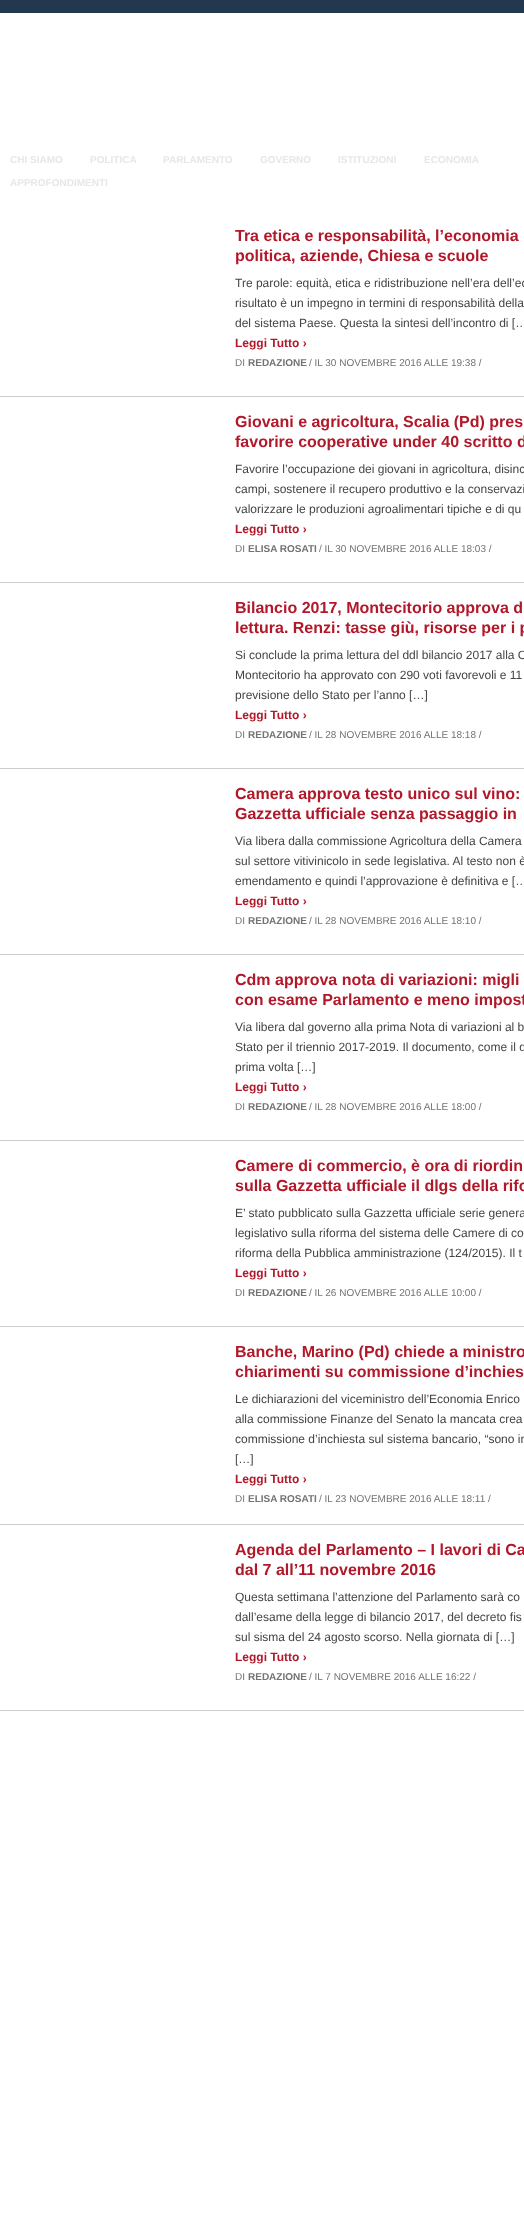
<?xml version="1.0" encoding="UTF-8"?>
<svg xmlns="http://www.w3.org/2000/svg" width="524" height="2240">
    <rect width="100%" height="100%" fill="#FFFFFF"/>
    <rect x="0" y="0" width="524" height="13" fill="#22384F"/>
    <text x="10" y="163" font-family="Liberation Sans" font-size="10" font-weight="700" fill="#E7E7E7">CHI SIAMO</text>
    <text x="90" y="163" font-family="Liberation Sans" font-size="10" font-weight="700" fill="#E7E7E7">POLITICA</text>
    <text x="163" y="163" font-family="Liberation Sans" font-size="10" font-weight="700" fill="#E7E7E7">PARLAMENTO</text>
    <text x="260" y="163" font-family="Liberation Sans" font-size="10" font-weight="700" fill="#E7E7E7">GOVERNO</text>
    <text x="338" y="163" font-family="Liberation Sans" font-size="10" font-weight="700" fill="#E7E7E7">ISTITUZIONI</text>
    <text x="424" y="163" font-family="Liberation Sans" font-size="10" font-weight="700" fill="#E7E7E7">ECONOMIA</text>
    <text x="10" y="186" font-family="Liberation Sans" font-size="10" font-weight="700" fill="#E7E7E7">APPROFONDIMENTI</text>
    <rect x="0" y="396" width="524" height="1" fill="#CCCCCC"/>
    <text font-family="Liberation Sans" font-size="16" font-weight="700" fill="#B11829">
        <tspan x="235" y="241">Tra etica e responsabilità, l’economia</tspan>
        <tspan x="235" y="261">politica, aziende, Chiesa e scuole</tspan>
    </text>
    <text font-family="Liberation Sans" font-size="12" fill="#444444">
        <tspan x="235" y="287">Tre parole: equità, etica e ridistribuzione nell’era dell’ec</tspan>
        <tspan x="235" y="307">risultato è un impegno in termini di responsabilità della</tspan>
        <tspan x="235" y="327">del sistema Paese. Questa la sintesi dell’incontro di […</tspan>
    </text>
    <text x="235" y="347" font-family="Liberation Sans" font-size="12" font-weight="700" fill="#B11829">Leggi Tutto ›</text>
    <text x="235" y="366" font-family="Liberation Sans" font-size="10" fill="#737373">DI</text>
    <text x="248" y="366" font-family="Liberation Sans" font-size="10" font-weight="700" fill="#737373">REDAZIONE</text>
    <text x="309" y="366" font-family="Liberation Sans" font-size="10" fill="#737373">/ IL 30 NOVEMBRE 2016 ALLE 19:38 /</text>
    <rect x="0" y="582" width="524" height="1" fill="#CCCCCC"/>
    <text font-family="Liberation Sans" font-size="16" font-weight="700" fill="#B11829">
        <tspan x="235" y="427">Giovani e agricoltura, Scalia (Pd) pres</tspan>
        <tspan x="235" y="447">favorire cooperative under 40 scritto d</tspan>
    </text>
    <text font-family="Liberation Sans" font-size="12" fill="#444444">
        <tspan x="235" y="473">Favorire l’occupazione dei giovani in agricoltura, disinc</tspan>
        <tspan x="235" y="493">campi, sostenere il recupero produttivo e la conservazi</tspan>
        <tspan x="235" y="513">valorizzare le produzioni agroalimentari tipiche e di qu</tspan>
    </text>
    <text x="235" y="533" font-family="Liberation Sans" font-size="12" font-weight="700" fill="#B11829">Leggi Tutto ›</text>
    <text x="235" y="552" font-family="Liberation Sans" font-size="10" fill="#737373">DI</text>
    <text x="248" y="552" font-family="Liberation Sans" font-size="10" font-weight="700" fill="#737373">ELISA ROSATI</text>
    <text x="319" y="552" font-family="Liberation Sans" font-size="10" fill="#737373">/ IL 30 NOVEMBRE 2016 ALLE 18:03 /</text>
    <rect x="0" y="768" width="524" height="1" fill="#CCCCCC"/>
    <text font-family="Liberation Sans" font-size="16" font-weight="700" fill="#B11829">
        <tspan x="235" y="613">Bilancio 2017, Montecitorio approva d</tspan>
        <tspan x="235" y="633">lettura. Renzi: tasse giù, risorse per i p</tspan>
    </text>
    <text font-family="Liberation Sans" font-size="12" fill="#444444">
        <tspan x="235" y="659">Si conclude la prima lettura del ddl bilancio 2017 alla C</tspan>
        <tspan x="235" y="679">Montecitorio ha approvato con 290 voti favorevoli e 11</tspan>
        <tspan x="235" y="699">previsione dello Stato per l’anno […]</tspan>
    </text>
    <text x="235" y="719" font-family="Liberation Sans" font-size="12" font-weight="700" fill="#B11829">Leggi Tutto ›</text>
    <text x="235" y="738" font-family="Liberation Sans" font-size="10" fill="#737373">DI</text>
    <text x="248" y="738" font-family="Liberation Sans" font-size="10" font-weight="700" fill="#737373">REDAZIONE</text>
    <text x="309" y="738" font-family="Liberation Sans" font-size="10" fill="#737373">/ IL 28 NOVEMBRE 2016 ALLE 18:18 /</text>
    <rect x="0" y="954" width="524" height="1" fill="#CCCCCC"/>
    <text font-family="Liberation Sans" font-size="16" font-weight="700" fill="#B11829">
        <tspan x="235" y="799">Camera approva testo unico sul vino:</tspan>
        <tspan x="235" y="819">Gazzetta ufficiale senza passaggio in</tspan>
    </text>
    <text font-family="Liberation Sans" font-size="12" fill="#444444">
        <tspan x="235" y="845">Via libera dalla commissione Agricoltura della Camera</tspan>
        <tspan x="235" y="865">sul settore vitivinicolo in sede legislativa. Al testo non è</tspan>
        <tspan x="235" y="885">emendamento e quindi l’approvazione è definitiva e […</tspan>
    </text>
    <text x="235" y="905" font-family="Liberation Sans" font-size="12" font-weight="700" fill="#B11829">Leggi Tutto ›</text>
    <text x="235" y="924" font-family="Liberation Sans" font-size="10" fill="#737373">DI</text>
    <text x="248" y="924" font-family="Liberation Sans" font-size="10" font-weight="700" fill="#737373">REDAZIONE</text>
    <text x="309" y="924" font-family="Liberation Sans" font-size="10" fill="#737373">/ IL 28 NOVEMBRE 2016 ALLE 18:10 /</text>
    <rect x="0" y="1140" width="524" height="1" fill="#CCCCCC"/>
    <text font-family="Liberation Sans" font-size="16" font-weight="700" fill="#B11829">
        <tspan x="235" y="985">Cdm approva nota di variazioni: migli</tspan>
        <tspan x="235" y="1005">con esame Parlamento e meno impost</tspan>
    </text>
    <text font-family="Liberation Sans" font-size="12" fill="#444444">
        <tspan x="235" y="1031">Via libera dal governo alla prima Nota di variazioni al b</tspan>
        <tspan x="235" y="1051">Stato per il triennio 2017-2019. Il documento, come il d</tspan>
        <tspan x="235" y="1071">prima volta […]</tspan>
    </text>
    <text x="235" y="1091" font-family="Liberation Sans" font-size="12" font-weight="700" fill="#B11829">Leggi Tutto ›</text>
    <text x="235" y="1110" font-family="Liberation Sans" font-size="10" fill="#737373">DI</text>
    <text x="248" y="1110" font-family="Liberation Sans" font-size="10" font-weight="700" fill="#737373">REDAZIONE</text>
    <text x="309" y="1110" font-family="Liberation Sans" font-size="10" fill="#737373">/ IL 28 NOVEMBRE 2016 ALLE 18:00 /</text>
    <rect x="0" y="1326" width="524" height="1" fill="#CCCCCC"/>
    <text font-family="Liberation Sans" font-size="16" font-weight="700" fill="#B11829">
        <tspan x="235" y="1171">Camere di commercio, è ora di riordin</tspan>
        <tspan x="235" y="1191">sulla Gazzetta ufficiale il dlgs della rifo</tspan>
    </text>
    <text font-family="Liberation Sans" font-size="12" fill="#444444">
        <tspan x="235" y="1217">E’ stato pubblicato sulla Gazzetta ufficiale serie genera</tspan>
        <tspan x="235" y="1237">legislativo sulla riforma del sistema delle Camere di co</tspan>
        <tspan x="235" y="1257">riforma della Pubblica amministrazione (124/2015). Il t</tspan>
    </text>
    <text x="235" y="1277" font-family="Liberation Sans" font-size="12" font-weight="700" fill="#B11829">Leggi Tutto ›</text>
    <text x="235" y="1296" font-family="Liberation Sans" font-size="10" fill="#737373">DI</text>
    <text x="248" y="1296" font-family="Liberation Sans" font-size="10" font-weight="700" fill="#737373">REDAZIONE</text>
    <text x="309" y="1296" font-family="Liberation Sans" font-size="10" fill="#737373">/ IL 26 NOVEMBRE 2016 ALLE 10:00 /</text>
    <rect x="0" y="1524" width="524" height="1" fill="#CCCCCC"/>
    <text font-family="Liberation Sans" font-size="16" font-weight="700" fill="#B11829">
        <tspan x="235" y="1357">Banche, Marino (Pd) chiede a ministro</tspan>
        <tspan x="235" y="1377">chiarimenti su commissione d’inchies</tspan>
    </text>
    <text font-family="Liberation Sans" font-size="12" fill="#444444">
        <tspan x="235" y="1403">Le dichiarazioni del viceministro dell’Economia Enrico</tspan>
        <tspan x="235" y="1423">alla commissione Finanze del Senato la mancata crea</tspan>
        <tspan x="235" y="1443">commissione d’inchiesta sul sistema bancario, “sono in</tspan>
        <tspan x="235" y="1463">[…]</tspan>
    </text>
    <text x="235" y="1483" font-family="Liberation Sans" font-size="12" font-weight="700" fill="#B11829">Leggi Tutto ›</text>
    <text x="235" y="1502" font-family="Liberation Sans" font-size="10" fill="#737373">DI</text>
    <text x="248" y="1502" font-family="Liberation Sans" font-size="10" font-weight="700" fill="#737373">ELISA ROSATI</text>
    <text x="319" y="1502" font-family="Liberation Sans" font-size="10" fill="#737373">/ IL 23 NOVEMBRE 2016 ALLE 18:11 /</text>
    <rect x="0" y="1710" width="524" height="1" fill="#CCCCCC"/>
    <text font-family="Liberation Sans" font-size="16" font-weight="700" fill="#B11829">
        <tspan x="235" y="1555">Agenda del Parlamento – I lavori di Ca</tspan>
        <tspan x="235" y="1575">dal 7 all’11 novembre 2016</tspan>
    </text>
    <text font-family="Liberation Sans" font-size="12" fill="#444444">
        <tspan x="235" y="1601">Questa settimana l’attenzione del Parlamento sarà co</tspan>
        <tspan x="235" y="1621">dall’esame della legge di bilancio 2017, del decreto fis</tspan>
        <tspan x="235" y="1641">sul sisma del 24 agosto scorso. Nella giornata di […]</tspan>
    </text>
    <text x="235" y="1661" font-family="Liberation Sans" font-size="12" font-weight="700" fill="#B11829">Leggi Tutto ›</text>
    <text x="235" y="1680" font-family="Liberation Sans" font-size="10" fill="#737373">DI</text>
    <text x="248" y="1680" font-family="Liberation Sans" font-size="10" font-weight="700" fill="#737373">REDAZIONE</text>
    <text x="309" y="1680" font-family="Liberation Sans" font-size="10" fill="#737373">/ IL 7 NOVEMBRE 2016 ALLE 16:22 /</text>
</svg>
